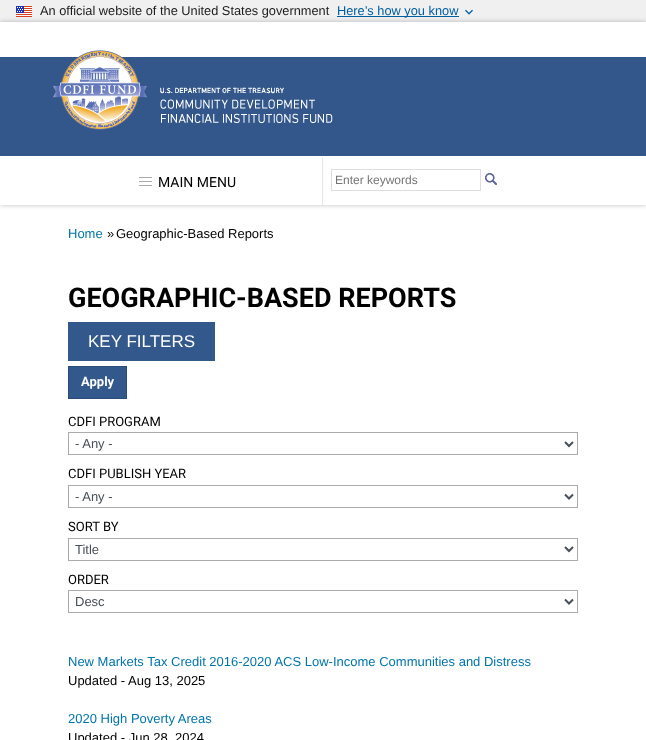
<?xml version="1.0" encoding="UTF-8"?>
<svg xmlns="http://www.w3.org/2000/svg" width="646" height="740">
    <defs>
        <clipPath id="clip1"><path d="M 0 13 H 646 V 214 H 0 Z M 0 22 H 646 V 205 H 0 Z" clip-rule="evenodd"/></clipPath>
        <filter id="blur1" x="-50%" y="-200%" width="200%" height="500%"><feGaussianBlur stdDeviation="2.5"/></filter>
    </defs>
    <rect width="100%" height="100%" fill="#FFFFFF"/>
    <rect x="0" y="0" width="646" height="22" fill="#F0F0F0"/>
    <image x="16" y="6" width="16" height="11" href="img_01.png"/>
    <text x="40" y="15" font-family="Liberation Sans" font-size="12.8" fill="#1B1B1B">An official website of the United States government</text>
    <rect x="337" y="16" width="122" height="1" fill="#005EA2"/>
    <text x="337" y="15" font-family="Liberation Sans" font-size="12.8" fill="#005EA2">Here’s how you know</text>
    <image x="465" y="9" width="8" height="6" href="img_02.png"/>
    <g clip-path="url(#clip1)">
        <rect x="0" y="22" width="646" height="183" fill="#000000" fill-opacity="0.25" filter="url(#blur1)"/>
    </g>
    <rect x="0" y="57" width="646" height="99" fill="#33578A"/>
    <rect x="322" y="158" width="1" height="48" fill="#E5E6E6"/>
    <image x="139" y="177" width="13" height="9" href="img_03.png"/>
    <text x="158" y="187" font-family="Roboto" font-size="14" fill="#000000">MAIN MENU</text>
    <image x="53" y="50" width="280" height="80" href="img_04.png"/>
    <rect x="331.5" y="169.5" width="149" height="21" fill="none" stroke="#DEDEDE"/>
    <text x="335" y="184" font-family="Liberation Sans" font-size="12" fill="#757575">Enter keywords</text>
    <image x="485" y="173" width="12" height="12" href="img_05.png"/>
    <text x="68" y="238" font-family="Liberation Sans" font-size="13" fill="#0175AD">Home</text>
    <text x="107" y="238" font-family="Liberation Sans" font-size="13" fill="#000000">»</text>
    <text x="116" y="238" font-family="Liberation Sans" font-size="13" fill="#000000">Geographic-Based Reports</text>
    <text x="68" y="307" font-family="Roboto" font-size="27" font-weight="700" fill="#000000">GEOGRAPHIC-BASED REPORTS</text>
    <rect x="68" y="322" width="147" height="39" fill="#33588B"/>
    <text x="88" y="347" font-family="Liberation Sans" font-size="17" fill="#FFFFFF">KEY FILTERS</text>
    <rect x="68.5" y="366.5" width="58" height="32" fill="#33588B" stroke="#2C4C78"/>
    <text x="81" y="386" font-family="Roboto" font-size="13" font-weight="700" fill="#FFFFFF">Apply</text>
    <text x="68" y="426" font-family="Roboto" font-size="13" fill="#000000">CDFI PROGRAM</text>
    <rect x="68.5" y="432.5" width="509" height="22" fill="none" stroke="#ABABAB"/>
    <path d="M 565 442 L 569 446 L 573 442" fill="none" stroke="#495057" stroke-width="2"/>
    <text x="75" y="448" font-family="Liberation Sans" font-size="13" fill="#495057">- Any -</text>
    <text x="68" y="478" font-family="Roboto" font-size="13" fill="#000000">CDFI PUBLISH YEAR</text>
    <rect x="68.5" y="485.5" width="509" height="22" fill="none" stroke="#ABABAB"/>
    <path d="M 565 494.5 L 569 498.5 L 573 494.5" fill="none" stroke="#495057" stroke-width="2"/>
    <text x="75" y="501" font-family="Liberation Sans" font-size="13" fill="#495057">- Any -</text>
    <text x="68" y="531" font-family="Roboto" font-size="13" fill="#000000">SORT BY</text>
    <rect x="68.5" y="538.5" width="509" height="22" fill="none" stroke="#ABABAB"/>
    <path d="M 565 547 L 569 551 L 573 547" fill="none" stroke="#495057" stroke-width="2"/>
    <text x="75" y="554" font-family="Liberation Sans" font-size="13" fill="#495057">Title</text>
    <text x="68" y="584" font-family="Roboto" font-size="13" fill="#000000">ORDER</text>
    <rect x="68.5" y="590.5" width="509" height="22" fill="none" stroke="#ABABAB"/>
    <path d="M 565 599.5 L 569 603.5 L 573 599.5" fill="none" stroke="#495057" stroke-width="2"/>
    <text x="75" y="606" font-family="Liberation Sans" font-size="13" fill="#495057">Desc</text>
    <text x="68" y="666" font-family="Liberation Sans" font-size="13" fill="#0175AD">New Markets Tax Credit 2016-2020 ACS Low-Income Communities and Distress</text>
    <text x="68" y="685" font-family="Liberation Sans" font-size="13" fill="#000000">Updated -</text>
    <text x="128" y="685" font-family="Liberation Sans" font-size="13" fill="#000000">Aug 13, 2025</text>
    <text x="68" y="723" font-family="Liberation Sans" font-size="13" fill="#0175AD">2020 High Poverty Areas</text>
    <text x="68" y="742" font-family="Liberation Sans" font-size="13" fill="#000000">Updated - Jun 28, 2024</text>
</svg>
